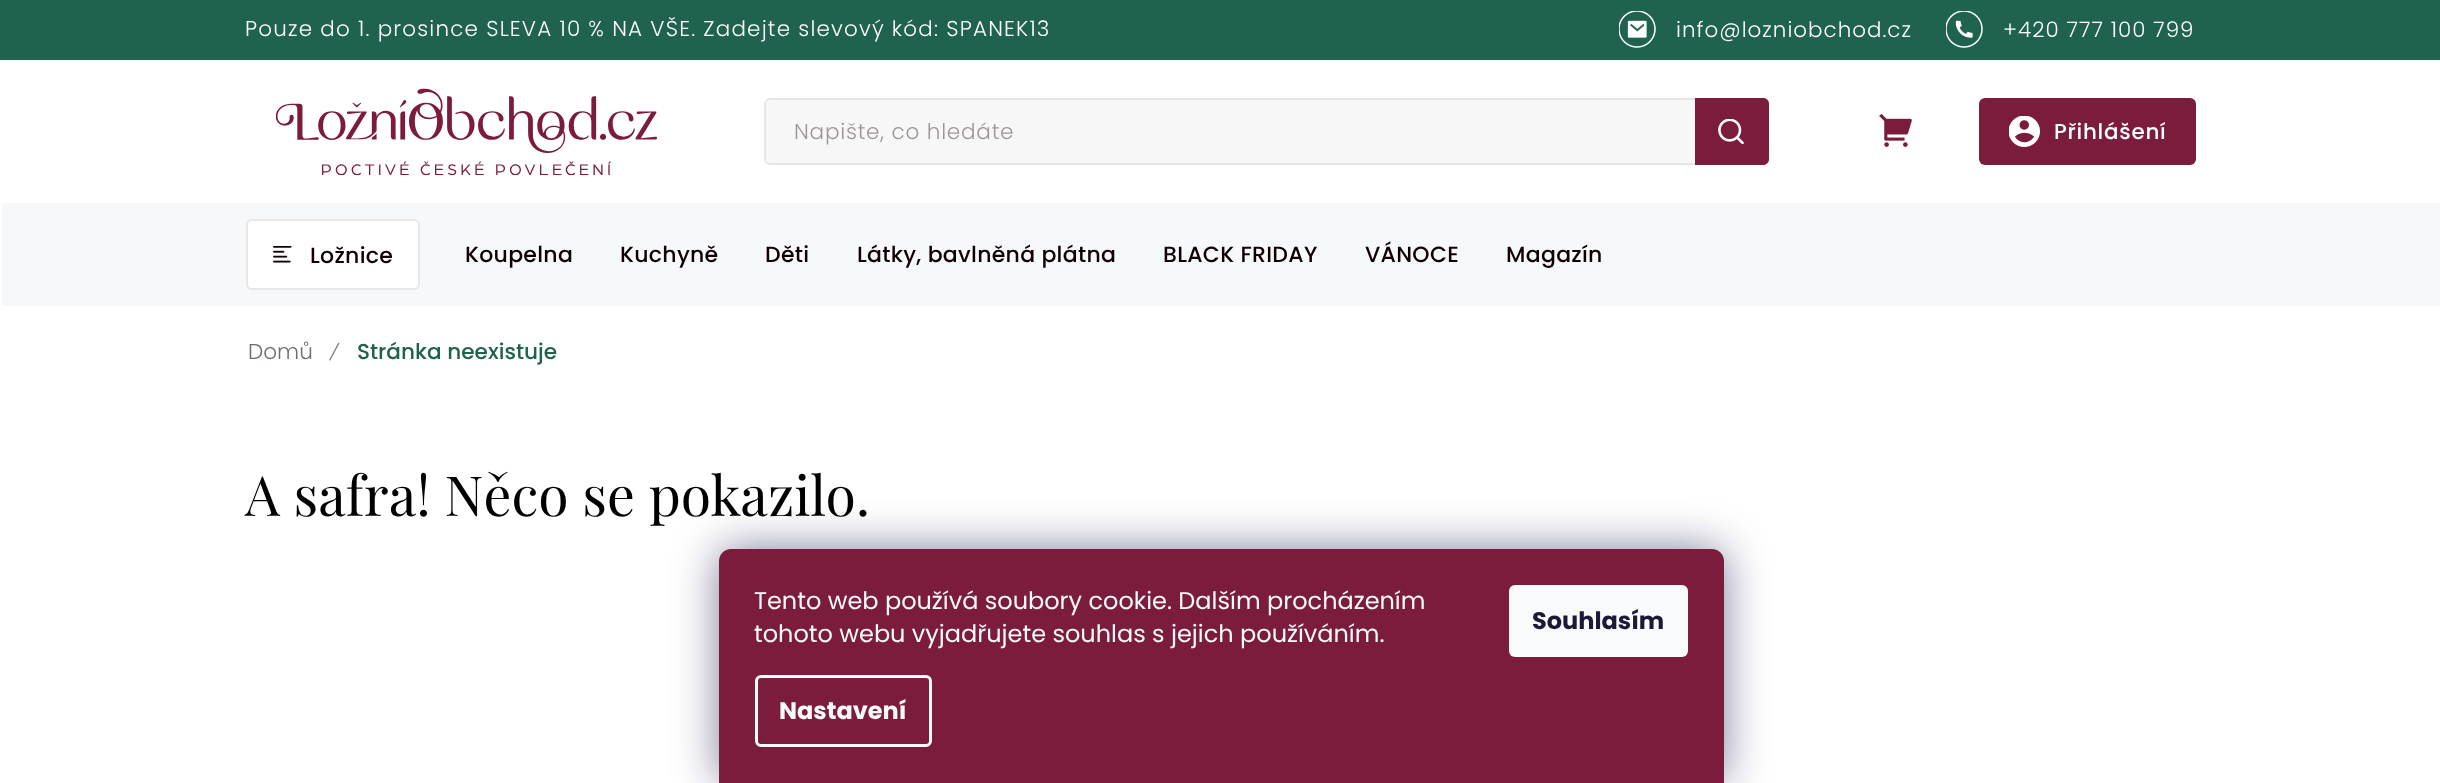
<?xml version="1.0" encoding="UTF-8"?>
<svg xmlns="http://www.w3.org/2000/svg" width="2440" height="783">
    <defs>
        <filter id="blur1" x="-50%" y="-200%" width="200%" height="500%"><feGaussianBlur stdDeviation="22.5"/></filter>
    </defs>
    <rect width="100%" height="100%" fill="#FFFFFF"/>
    <rect x="0" y="0" width="2440" height="60" fill="#1F624D"/>
    <text x="245" y="36" font-family="Poppins" font-size="21.45" font-weight="300" letter-spacing="1.2" fill="#FFFFFF">Pouze do 1. prosince SLEVA 10 % NA VŠE. Zadejte slevový kód: SPANEK13</text>
    <image x="1619" y="11" width="37" height="37" href="img_01.png"/>
    <text x="1676" y="37" font-family="Poppins" font-size="21.45" font-weight="300" letter-spacing="1" fill="#FFFFFF">info@lozniobchod.cz</text>
    <image x="1946" y="11" width="37" height="37" href="img_02.png"/>
    <text x="2003" y="37" font-family="Poppins" font-size="21.45" font-weight="300" letter-spacing="1" fill="#FFFFFF">+420 777 100 799</text>
    <rect x="1979" y="98" width="217" height="67" rx="6" fill="#7C1C3D"/>
    <image x="2009" y="116" width="31" height="31" href="img_03.png"/>
    <text x="2054" y="139" font-family="Poppins" font-size="21.45" font-weight="500" letter-spacing="0.75" fill="#FFFFFF">Přihlášení</text>
    <image x="276" y="88" width="381" height="88" href="img_04.png"/>
    <rect x="765" y="99" width="1003" height="65" rx="5" fill="#F7F7F8" stroke="#E6E6E6" stroke-width="2"/>
    <text x="794" y="139" font-family="Poppins" font-size="21.6" font-weight="300" letter-spacing="0.75" fill="#9D9699">Napište, co hledáte</text>
    <path d="M 1695 98 H 1763 C 1766.5 98 1769 100.5 1769 104 V 159 C 1769 162.5 1766.5 165 1763 165 H 1695 Z" fill="#7C1C3D"/>
    <image x="1718" y="119" width="26" height="25" href="img_05.png"/>
    <image x="1879" y="113" width="33" height="34" href="img_06.png"/>
    <rect x="2" y="203" width="2438" height="103" fill="#F6F8F9"/>
    <rect x="247" y="220" width="172" height="69" rx="5" fill="#FFFFFF" stroke="#E6E7E8" stroke-width="2"/>
    <image x="273" y="246" width="19" height="17" href="img_07.png"/>
    <text x="310" y="263" font-family="Poppins" font-size="22" font-weight="500" letter-spacing="0.3" fill="#0F0005">Ložnice</text>
    <text x="465" y="262" font-family="Poppins" font-size="22" font-weight="500" letter-spacing="0.3" fill="#0F0005">Koupelna</text>
    <text x="620" y="262" font-family="Poppins" font-size="22" font-weight="500" letter-spacing="0.3" fill="#0F0005">Kuchyně</text>
    <text x="765" y="262" font-family="Poppins" font-size="22" font-weight="500" letter-spacing="0.3" fill="#0F0005">Děti</text>
    <text x="857" y="262" font-family="Poppins" font-size="22" font-weight="500" letter-spacing="0.3" fill="#0F0005">Látky, bavlněná plátna</text>
    <text x="1163" y="262" font-family="Poppins" font-size="22" font-weight="500" letter-spacing="0.3" fill="#0F0005">BLACK FRIDAY</text>
    <text x="1365" y="262" font-family="Poppins" font-size="22" font-weight="500" letter-spacing="0.3" fill="#0F0005">VÁNOCE</text>
    <text x="1506" y="262" font-family="Poppins" font-size="22" font-weight="500" letter-spacing="0.3" fill="#0F0005">Magazín</text>
    <text x="248" y="359" font-family="Poppins" font-size="21.6" font-weight="300" fill="#746B6E">Domů</text>
    <text x="329" y="360" transform="rotate(9 329 360)" font-family="Liberation Serif" font-size="28" fill="#857F82">/</text>
    <text x="357" y="359" font-family="Poppins" font-size="21.6" font-weight="500" fill="#1F624D">Stránka neexistuje</text>
    <text x="245" y="516" font-family="Playfair Display" font-size="55.25" fill="#000000">A safra! Něco se pokazilo.</text>
    <rect x="719" y="549" width="1005" height="234" rx="12" fill="#1B1939" fill-opacity="0.5" filter="url(#blur1)"/>
    <path d="M 731 549 H 1712 C 1718.5 549 1724 554.5 1724 561 V 783 H 719 V 561 C 719 554.5 724.5 549 731 549 Z" fill="#7C1C3D"/>
    <text font-family="Poppins" font-size="24" fill="#F8FAFB">
        <tspan x="754" y="609">Tento web používá soubory cookie. Dalším procházením</tspan>
        <tspan x="754" y="642">tohoto webu vyjadřujete souhlas s jejich používáním.</tspan>
    </text>
    <rect x="756.5" y="676.5" width="174" height="69" rx="4.5" fill="none" stroke="#F8FAFB" stroke-width="3"/>
    <text x="779" y="719" font-family="Poppins" font-size="24" font-weight="700" fill="#F8FAFB">Nastavení</text>
    <rect x="1509" y="585" width="179" height="72" rx="6" fill="#F8FAFB"/>
    <text x="1532" y="629" font-family="Poppins" font-size="24" font-weight="700" fill="#1A1937">Souhlasím</text>
</svg>
